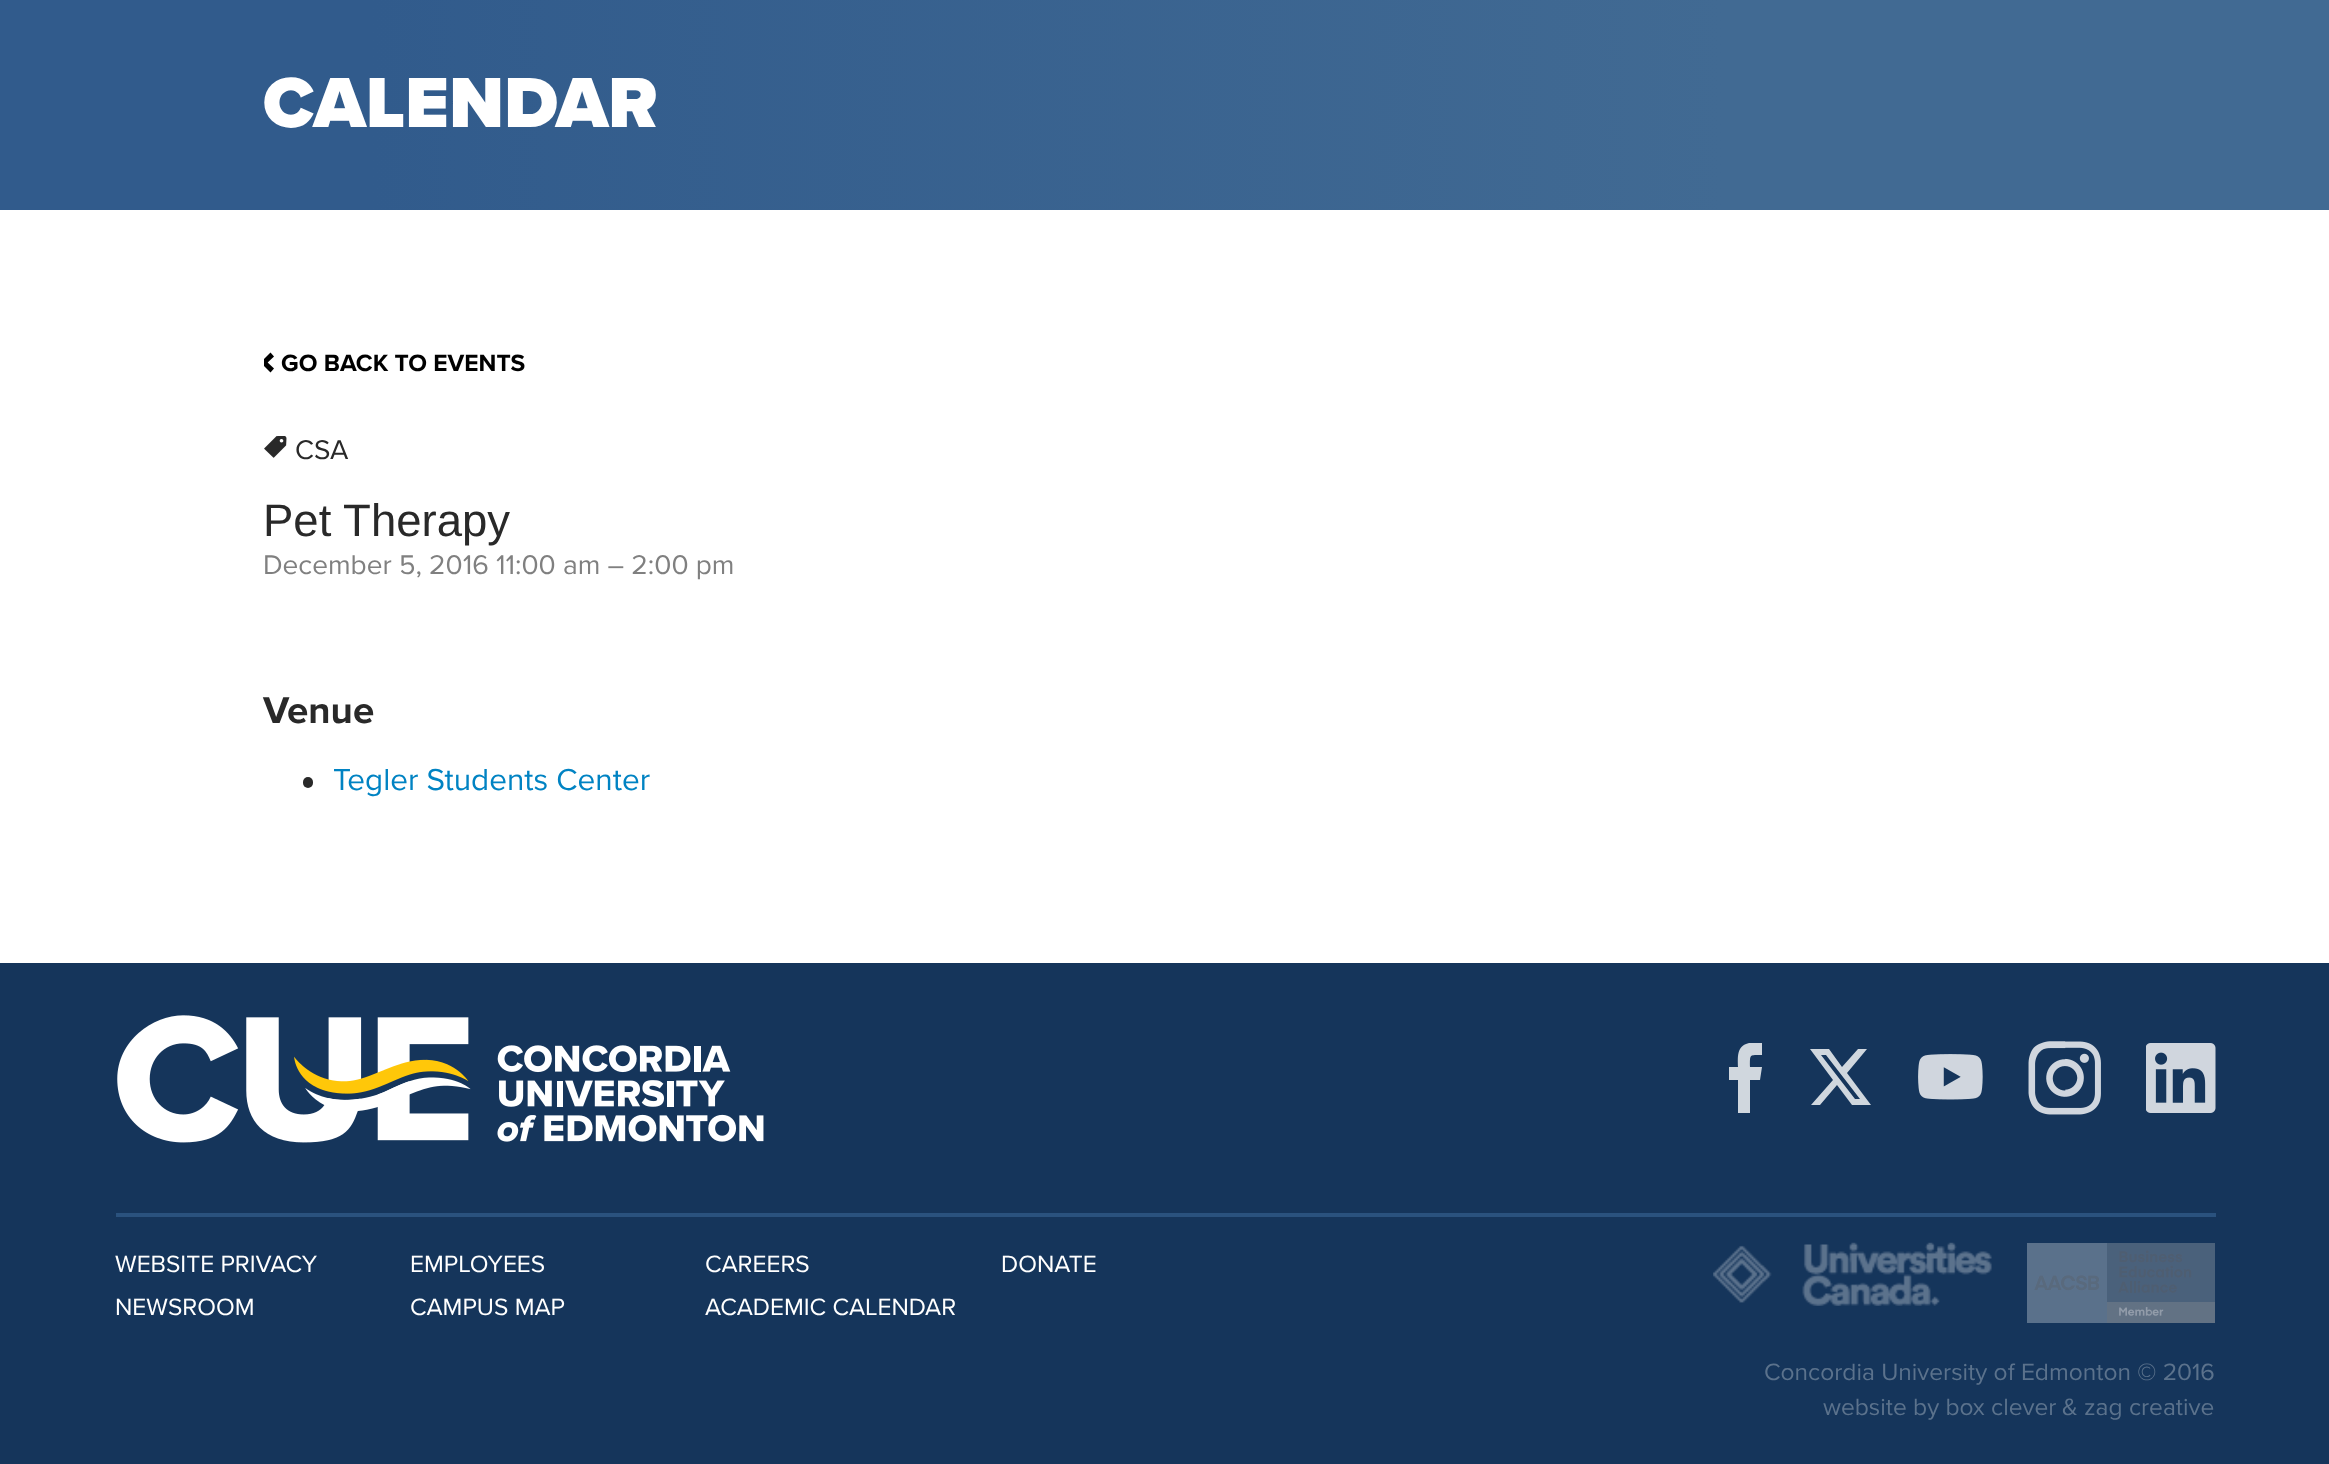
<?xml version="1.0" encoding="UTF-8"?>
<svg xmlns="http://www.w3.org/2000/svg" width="2329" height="1464">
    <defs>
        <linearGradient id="g1" gradientUnits="userSpaceOnUse" x1="0" y1="35" x2="2329" y2="35"><stop offset="0.16" stop-color="#315B8C"/><stop offset="0.74" stop-color="#416A93"/></linearGradient>
        <clipPath id="clip1"><rect x="264" y="341" width="1803" height="490"/></clipPath>
    </defs>
    <rect width="100%" height="100%" fill="#FFFFFF"/>
    <rect x="0" y="0" width="2329" height="210" fill="url(#g1)"/>
    <text x="263" y="127" font-family="Proxima Nova" font-size="73.5" font-weight="900" fill="#FFFFFF">CALENDAR</text>
    <g clip-path="url(#clip1)">
        <path d="M 260.5 362.5 L 270.5 352.5 L 274 356.5 L 264 366 Z" fill="#000000"/>
        <path d="M 260.5 362.5 L 264 359 L 274 368.5 L 270.5 372.5 Z" fill="#000000"/>
    </g>
    <text x="281" y="371" font-family="Proxima Nova" font-size="24.5" font-weight="700" fill="#000000">GO BACK TO EVENTS</text>
    <image x="264" y="436" width="23" height="22" href="img_01.png"/>
    <text x="295" y="459" font-family="Proxima Nova" font-size="28" fill="#292929">CSA</text>
    <text x="263" y="536" font-family="Liberation Sans" font-size="45.5" fill="#292929">Pet Therapy</text>
    <text x="263" y="574" font-family="Proxima Nova" font-size="28" fill="#808080">December 5, 2016 11:00 am – 2:00 pm</text>
    <text x="263" y="723" font-family="Proxima Nova" font-size="38.5" font-weight="700" fill="#292929">Venue</text>
    <rect x="303" y="777" width="10" height="11" rx="5" fill="#292929"/>
    <text x="333" y="790" font-family="Proxima Nova" font-size="31.5" fill="#0083C3">Tegler Students Center</text>
    <rect x="0" y="963" width="2329" height="501" fill="#15355B"/>
    <image x="117" y="1015" width="647" height="128" href="img_02.png"/>
    <path d="M 1762 1067 H 1750 C 1750 1054 1749 1055 1762 1055 V 1043 H 1749 C 1736 1046 1738 1058 1738 1067 H 1729 V 1080 H 1738 V 1113 H 1750 V 1080 H 1760 Z" fill="#D0D7DE"/>
    <path d="M 1858 1049 H 1867 L 1847 1073 L 1871 1105 H 1852 L 1837 1085 L 1820 1105 H 1811 L 1833 1080 L 1810 1049 H 1829 L 1842 1067 Z M 1855 1099 H 1860 L 1826 1055 H 1821 Z" fill="#D0D7DE"/>
    <image x="1918" y="1054" width="65" height="46" href="img_03.png"/>
    <image x="2028" y="1041" width="73" height="74" href="img_04.png"/>
    <image x="2146" y="1043" width="70" height="70" href="img_05.png"/>
    <rect x="116" y="1213" width="2100" height="4" fill="#2A527E"/>
    <text x="115" y="1272" font-family="Proxima Nova" font-size="24.5" fill="#FFFFFF">WEBSITE PRIVACY</text>
    <text x="410" y="1272" font-family="Proxima Nova" font-size="24.5" fill="#FFFFFF">EMPLOYEES</text>
    <text x="705" y="1272" font-family="Proxima Nova" font-size="24.5" fill="#FFFFFF">CAREERS</text>
    <text x="1001" y="1272" font-family="Proxima Nova" font-size="24.5" fill="#FFFFFF">DONATE</text>
    <text x="115" y="1315" font-family="Proxima Nova" font-size="24.5" fill="#FFFFFF">NEWSROOM</text>
    <text x="410" y="1315" font-family="Proxima Nova" font-size="24.5" fill="#FFFFFF">CAMPUS MAP</text>
    <text x="705" y="1315" font-family="Proxima Nova" font-size="24.5" fill="#FFFFFF">ACADEMIC CALENDAR</text>
    <image x="1713" y="1242" width="279" height="64" href="img_06.png"/>
    <image x="2027" y="1243" width="188" height="80" href="img_07.png"/>
    <text x="1764" y="1380" font-family="Proxima Nova" font-size="24.5" fill="#5B728C">Concordia University of Edmonton © 2016</text>
    <text x="1823" y="1415" font-family="Proxima Nova" font-size="24.5" fill="#5B728C">website by box clever</text>
    <text x="2062" y="1415" font-family="Proxima Nova" font-size="24.5" fill="#5B728C">&amp; zag creative</text>
</svg>
